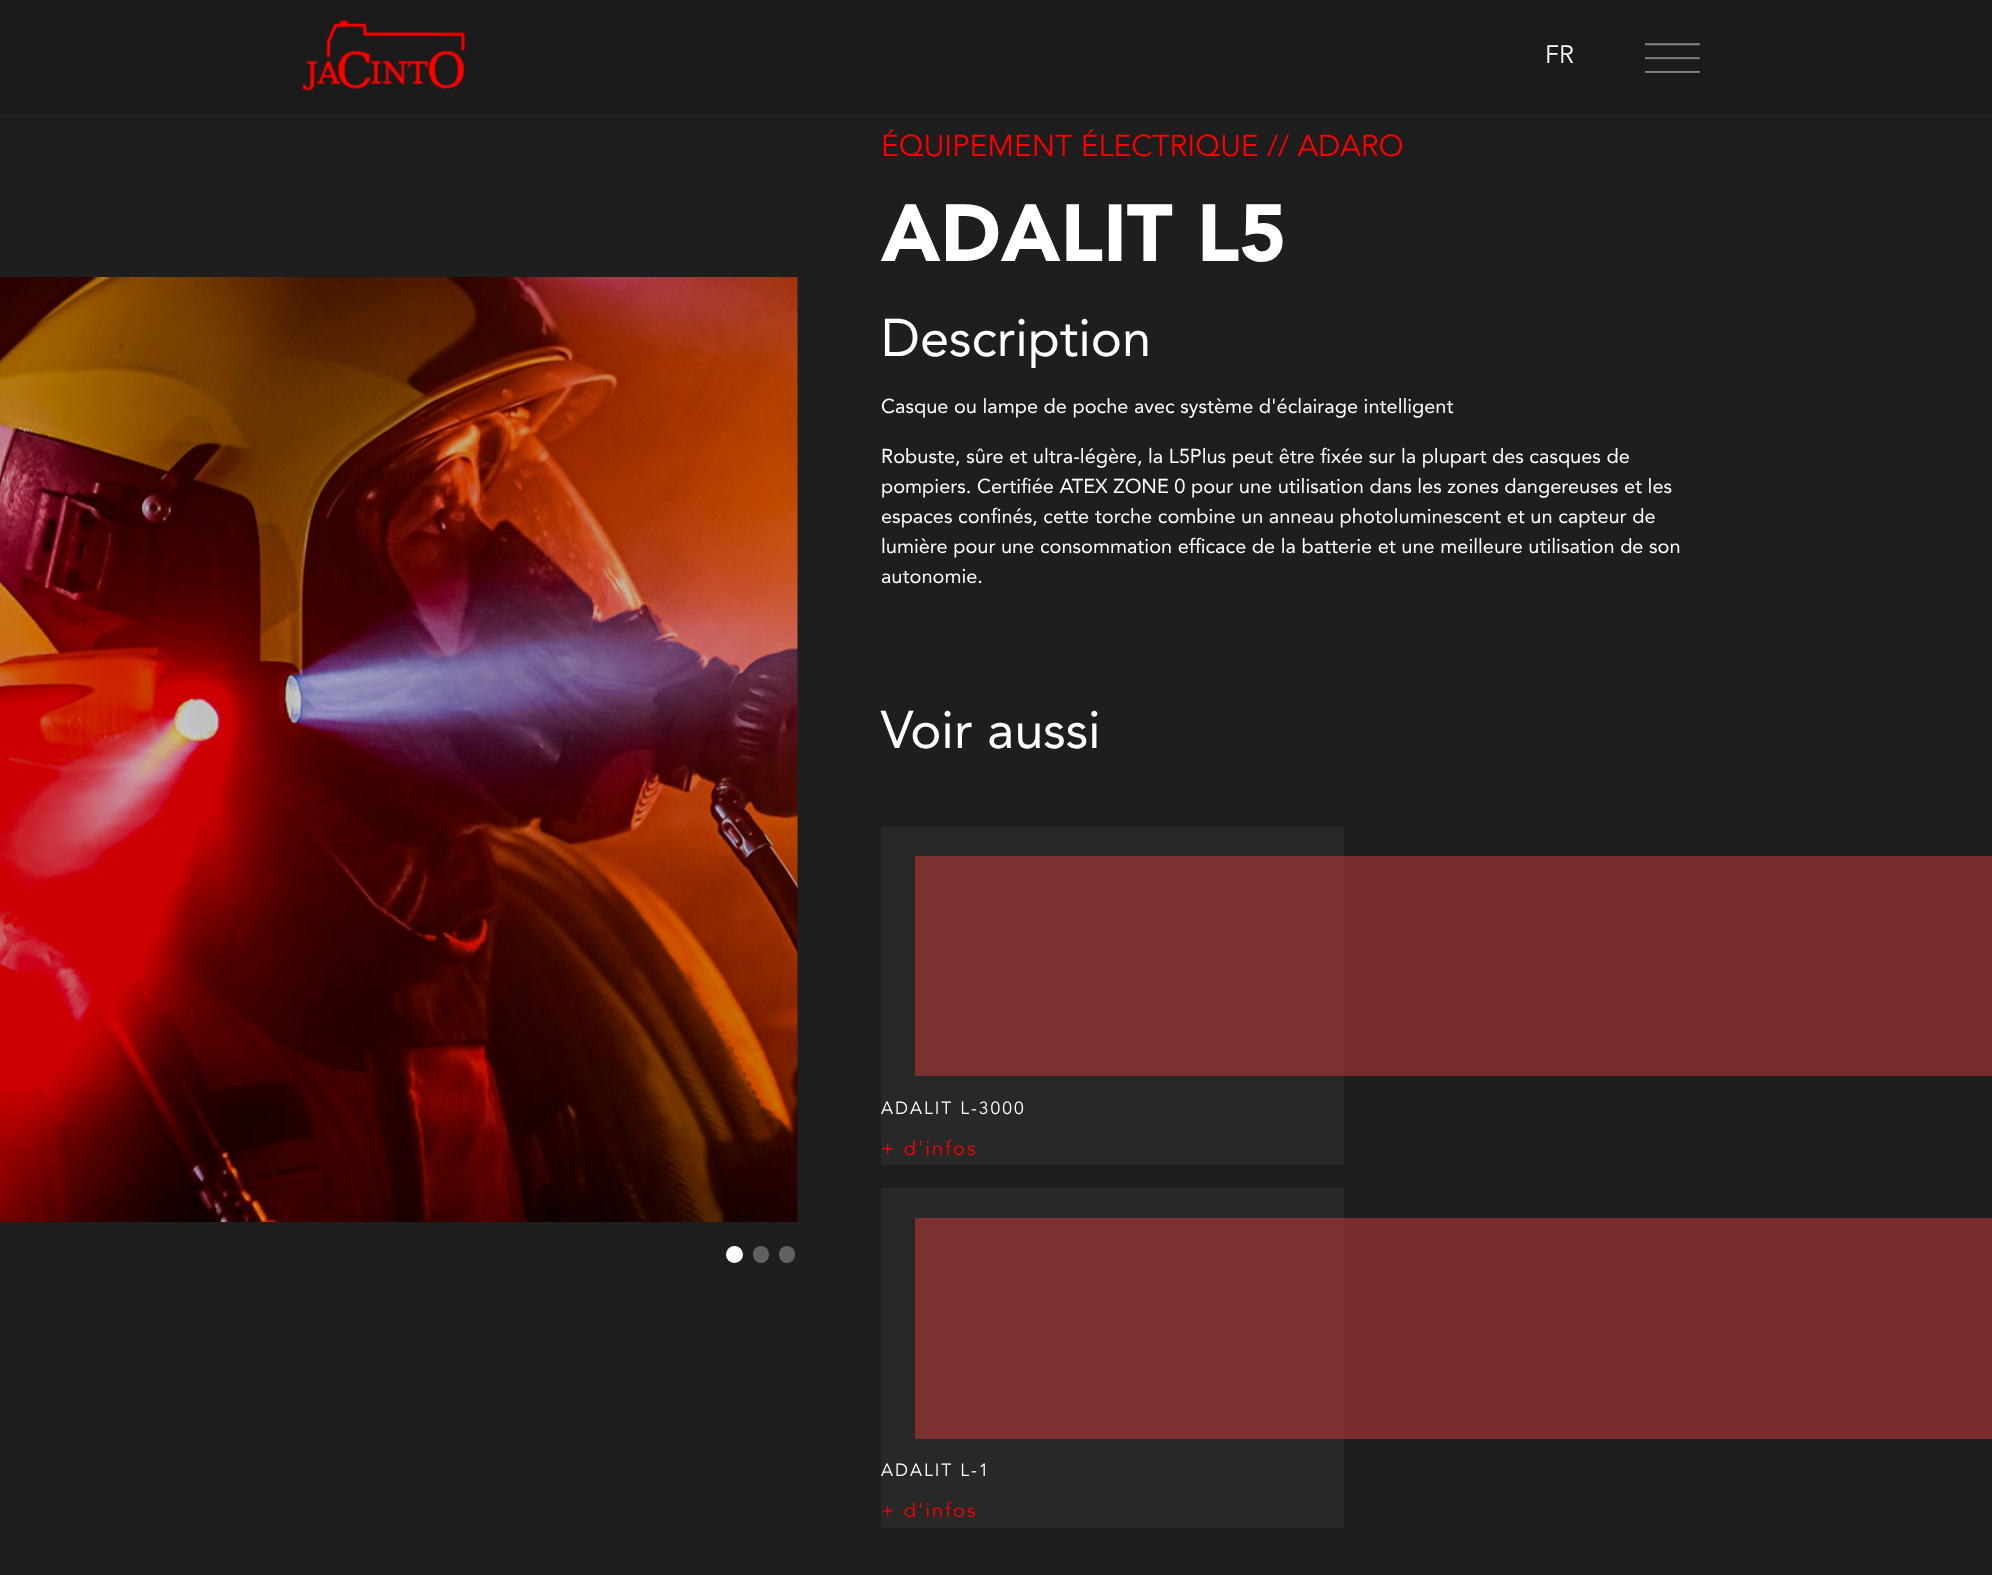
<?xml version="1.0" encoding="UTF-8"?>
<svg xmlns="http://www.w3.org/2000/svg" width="1992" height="1575">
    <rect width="100%" height="100%" fill="#1E1E1E"/>
    <rect x="1344" y="1218" width="648" height="221" fill="#762D2C"/>
    <rect x="1344" y="856" width="648" height="220" fill="#762D2C"/>
    <rect x="0" y="0" width="1992" height="113" fill="#1B1B1B"/>
    <image x="302" y="19" width="164" height="72" href="img_01.png"/>
    <text x="1545" y="63" font-family="Avenir" font-size="25" fill="#FFFFFF">FR</text>
    <image x="1645" y="43" width="55" height="30" href="img_02.png"/>
    <image x="0" y="277" width="798" height="945" href="img_03.png"/>
    <circle cx="734.5" cy="1254.5" r="8.5" fill="#FFFFFF"/>
    <rect x="753" y="1246" width="16" height="17" rx="8" fill="#616161"/>
    <rect x="779" y="1246" width="16" height="17" rx="8" fill="#616161"/>
    <text x="881" y="156" font-family="Avenir" font-size="30" fill="#FE0000">ÉQUIPEMENT ÉLECTRIQUE // ADARO</text>
    <text x="881" y="261" font-family="Avenir" font-size="80" font-weight="900" fill="#FFFFFF">ADALIT L5</text>
    <text x="881" y="356" font-family="'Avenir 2'" font-size="52.5" fill="#FFFFFF">Description</text>
    <text x="881" y="413" font-family="'Avenir 2'" font-size="20" fill="#FFFFFF">Casque ou lampe de poche avec système d'éclairage intelligent</text>
    <text font-family="'Avenir 2'" font-size="20" fill="#FFFFFF">
        <tspan x="881" y="463">Robuste, sûre et ultra-légère, la L5Plus peut être fixée sur la plupart des casques de</tspan>
        <tspan x="881" y="493">pompiers. Certifiée ATEX ZONE 0 pour une utilisation dans les zones dangereuses et les</tspan>
        <tspan x="881" y="523">espaces confinés, cette torche combine un anneau photoluminescent et un capteur de</tspan>
        <tspan x="881" y="553">lumière pour une consommation efficace de la batterie et une meilleure utilisation de son</tspan>
        <tspan x="881" y="583">autonomie.</tspan>
    </text>
    <text x="881" y="748" font-family="'Avenir 2'" font-size="52.5" fill="#FFFFFF">Voir aussi</text>
    <rect x="881" y="826" width="463" height="339" fill="#282828"/>
    <rect x="915" y="856" width="429" height="220" fill="#7A3130"/>
    <text x="881" y="1114" font-family="Avenir" font-size="17.5" letter-spacing="2" fill="#FFFFFF">ADALIT L-3000</text>
    <text x="881" y="1155" font-family="Avenir" font-size="20" letter-spacing="2" fill="#FE0000">+ d'infos</text>
    <rect x="881" y="1188" width="463" height="340" fill="#282828"/>
    <rect x="915" y="1218" width="429" height="221" fill="#7A3130"/>
    <text x="881" y="1476" font-family="Avenir" font-size="17.5" letter-spacing="2" fill="#FFFFFF">ADALIT L-1</text>
    <text x="881" y="1517" font-family="Avenir" font-size="20" letter-spacing="2" fill="#FE0000">+ d'infos</text>
</svg>
